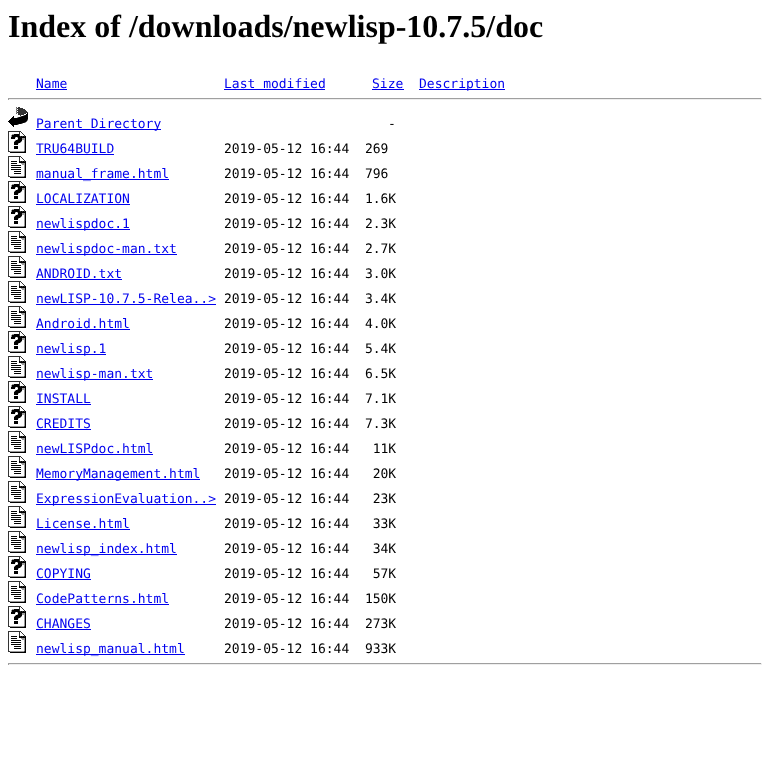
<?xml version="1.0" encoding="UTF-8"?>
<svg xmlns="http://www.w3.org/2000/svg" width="770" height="768">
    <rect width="100%" height="100%" fill="#FFFFFF"/>
    <text x="8" y="37" font-family="Liberation Serif" font-size="32" font-weight="700" fill="#000000">Index of /downloads/newlisp-10.7.5/doc</text>
    <text x="36" y="88" font-family="DejaVu Sans Mono" font-size="13" fill="#0000EE">Name</text>
    <rect x="36" y="89" width="31" height="1" fill="#0000EE"/>
    <text x="224" y="88" font-family="DejaVu Sans Mono" font-size="13" fill="#0000EE">Last modified</text>
    <rect x="224" y="89" width="101" height="1" fill="#0000EE"/>
    <text x="372" y="88" font-family="DejaVu Sans Mono" font-size="13" fill="#0000EE">Size</text>
    <rect x="372" y="89" width="32" height="1" fill="#0000EE"/>
    <rect x="419" y="89" width="86" height="1" fill="#0000EE"/>
    <text x="419" y="88" font-family="DejaVu Sans Mono" font-size="13" fill="#0000EE">Description</text>
    <rect x="8" y="98" width="754" height="1" fill="#9F9F9F"/>
    <rect x="761" y="98" width="1" height="2" fill="#EEEEEE"/>
    <rect x="8" y="99" width="754" height="1" fill="#EEEEEE"/>
    <rect x="8" y="98" width="1" height="2" fill="#9F9F9F"/>
    <image x="8" y="107" width="20" height="20" href="img_01.png"/>
    <rect x="36" y="129" width="125" height="1" fill="#0000EE"/>
    <text x="36" y="128" font-family="DejaVu Sans Mono" font-size="13" fill="#0000EE">Parent Directory</text>
    <text x="388" y="128" font-family="DejaVu Sans Mono" font-size="13" fill="#000000">-</text>
    <image x="8" y="131" width="18" height="22" href="img_02.png"/>
    <text x="36" y="153" font-family="DejaVu Sans Mono" font-size="13" fill="#0000EE">TRU64BUILD</text>
    <rect x="36" y="154" width="78" height="1" fill="#0000EE"/>
    <text x="224" y="153" font-family="DejaVu Sans Mono" font-size="13" fill="#000000" xml:space="preserve">2019-05-12 16:44  269</text>
    <image x="8" y="156" width="18" height="22" href="img_03.png"/>
    <rect x="36" y="179" width="133" height="1" fill="#0000EE"/>
    <text x="36" y="178" font-family="DejaVu Sans Mono" font-size="13" fill="#0000EE">manual_frame.html</text>
    <text x="224" y="178" font-family="DejaVu Sans Mono" font-size="13" fill="#000000" xml:space="preserve">2019-05-12 16:44  796</text>
    <image x="8" y="181" width="18" height="22" href="img_02.png"/>
    <text x="36" y="203" font-family="DejaVu Sans Mono" font-size="13" fill="#0000EE">LOCALIZATION</text>
    <rect x="36" y="204" width="94" height="1" fill="#0000EE"/>
    <text x="224" y="203" font-family="DejaVu Sans Mono" font-size="13" fill="#000000" xml:space="preserve">2019-05-12 16:44  1.6K</text>
    <image x="8" y="206" width="18" height="22" href="img_02.png"/>
    <rect x="36" y="229" width="94" height="1" fill="#0000EE"/>
    <text x="36" y="228" font-family="DejaVu Sans Mono" font-size="13" fill="#0000EE">newlispdoc.1</text>
    <text x="224" y="228" font-family="DejaVu Sans Mono" font-size="13" fill="#000000" xml:space="preserve">2019-05-12 16:44  2.3K</text>
    <image x="8" y="231" width="18" height="22" href="img_03.png"/>
    <rect x="36" y="254" width="141" height="1" fill="#0000EE"/>
    <text x="36" y="253" font-family="DejaVu Sans Mono" font-size="13" fill="#0000EE">newlispdoc-man.txt</text>
    <text x="224" y="253" font-family="DejaVu Sans Mono" font-size="13" fill="#000000" xml:space="preserve">2019-05-12 16:44  2.7K</text>
    <image x="8" y="256" width="18" height="22" href="img_03.png"/>
    <text x="36" y="278" font-family="DejaVu Sans Mono" font-size="13" fill="#0000EE">ANDROID.txt</text>
    <rect x="36" y="279" width="86" height="1" fill="#0000EE"/>
    <text x="224" y="278" font-family="DejaVu Sans Mono" font-size="13" fill="#000000" xml:space="preserve">2019-05-12 16:44  3.0K</text>
    <image x="8" y="281" width="18" height="22" href="img_03.png"/>
    <text x="36" y="303" font-family="DejaVu Sans Mono" font-size="13" fill="#0000EE">newLISP-10.7.5-Relea..&gt;</text>
    <rect x="36" y="304" width="180" height="1" fill="#0000EE"/>
    <text x="224" y="303" font-family="DejaVu Sans Mono" font-size="13" fill="#000000" xml:space="preserve">2019-05-12 16:44  3.4K</text>
    <image x="8" y="306" width="18" height="22" href="img_03.png"/>
    <text x="36" y="328" font-family="DejaVu Sans Mono" font-size="13" fill="#0000EE">Android.html</text>
    <rect x="36" y="329" width="94" height="1" fill="#0000EE"/>
    <text x="224" y="328" font-family="DejaVu Sans Mono" font-size="13" fill="#000000" xml:space="preserve">2019-05-12 16:44  4.0K</text>
    <image x="8" y="331" width="18" height="22" href="img_02.png"/>
    <rect x="36" y="354" width="70" height="1" fill="#0000EE"/>
    <text x="36" y="353" font-family="DejaVu Sans Mono" font-size="13" fill="#0000EE">newlisp.1</text>
    <text x="224" y="353" font-family="DejaVu Sans Mono" font-size="13" fill="#000000" xml:space="preserve">2019-05-12 16:44  5.4K</text>
    <image x="8" y="356" width="18" height="22" href="img_03.png"/>
    <rect x="36" y="379" width="117" height="1" fill="#0000EE"/>
    <text x="36" y="378" font-family="DejaVu Sans Mono" font-size="13" fill="#0000EE">newlisp-man.txt</text>
    <text x="224" y="378" font-family="DejaVu Sans Mono" font-size="13" fill="#000000" xml:space="preserve">2019-05-12 16:44  6.5K</text>
    <image x="8" y="381" width="18" height="22" href="img_02.png"/>
    <text x="36" y="403" font-family="DejaVu Sans Mono" font-size="13" fill="#0000EE">INSTALL</text>
    <rect x="36" y="404" width="55" height="1" fill="#0000EE"/>
    <text x="224" y="403" font-family="DejaVu Sans Mono" font-size="13" fill="#000000" xml:space="preserve">2019-05-12 16:44  7.1K</text>
    <image x="8" y="406" width="18" height="22" href="img_02.png"/>
    <text x="36" y="428" font-family="DejaVu Sans Mono" font-size="13" fill="#0000EE">CREDITS</text>
    <rect x="36" y="429" width="55" height="1" fill="#0000EE"/>
    <text x="224" y="428" font-family="DejaVu Sans Mono" font-size="13" fill="#000000" xml:space="preserve">2019-05-12 16:44  7.3K</text>
    <image x="8" y="431" width="18" height="22" href="img_03.png"/>
    <text x="36" y="453" font-family="DejaVu Sans Mono" font-size="13" fill="#0000EE">newLISPdoc.html</text>
    <rect x="36" y="454" width="117" height="1" fill="#0000EE"/>
    <text x="224" y="453" font-family="DejaVu Sans Mono" font-size="13" fill="#000000" xml:space="preserve">2019-05-12 16:44   11K</text>
    <image x="8" y="456" width="18" height="22" href="img_03.png"/>
    <rect x="36" y="479" width="164" height="1" fill="#0000EE"/>
    <text x="36" y="478" font-family="DejaVu Sans Mono" font-size="13" fill="#0000EE">MemoryManagement.html</text>
    <text x="224" y="478" font-family="DejaVu Sans Mono" font-size="13" fill="#000000" xml:space="preserve">2019-05-12 16:44   20K</text>
    <image x="8" y="481" width="18" height="22" href="img_03.png"/>
    <rect x="36" y="504" width="180" height="1" fill="#0000EE"/>
    <text x="36" y="503" font-family="DejaVu Sans Mono" font-size="13" fill="#0000EE">ExpressionEvaluation..&gt;</text>
    <text x="224" y="503" font-family="DejaVu Sans Mono" font-size="13" fill="#000000" xml:space="preserve">2019-05-12 16:44   23K</text>
    <image x="8" y="506" width="18" height="22" href="img_03.png"/>
    <text x="36" y="528" font-family="DejaVu Sans Mono" font-size="13" fill="#0000EE">License.html</text>
    <rect x="36" y="529" width="94" height="1" fill="#0000EE"/>
    <text x="224" y="528" font-family="DejaVu Sans Mono" font-size="13" fill="#000000" xml:space="preserve">2019-05-12 16:44   33K</text>
    <image x="8" y="531" width="18" height="22" href="img_03.png"/>
    <rect x="36" y="554" width="141" height="1" fill="#0000EE"/>
    <text x="36" y="553" font-family="DejaVu Sans Mono" font-size="13" fill="#0000EE">newlisp_index.html</text>
    <text x="224" y="553" font-family="DejaVu Sans Mono" font-size="13" fill="#000000" xml:space="preserve">2019-05-12 16:44   34K</text>
    <image x="8" y="556" width="18" height="22" href="img_02.png"/>
    <text x="36" y="578" font-family="DejaVu Sans Mono" font-size="13" fill="#0000EE">COPYING</text>
    <rect x="36" y="579" width="55" height="1" fill="#0000EE"/>
    <text x="224" y="578" font-family="DejaVu Sans Mono" font-size="13" fill="#000000" xml:space="preserve">2019-05-12 16:44   57K</text>
    <image x="8" y="581" width="18" height="22" href="img_03.png"/>
    <text x="36" y="603" font-family="DejaVu Sans Mono" font-size="13" fill="#0000EE">CodePatterns.html</text>
    <rect x="36" y="604" width="133" height="1" fill="#0000EE"/>
    <text x="224" y="603" font-family="DejaVu Sans Mono" font-size="13" fill="#000000" xml:space="preserve">2019-05-12 16:44  150K</text>
    <image x="8" y="606" width="18" height="22" href="img_02.png"/>
    <text x="36" y="628" font-family="DejaVu Sans Mono" font-size="13" fill="#0000EE">CHANGES</text>
    <rect x="36" y="629" width="55" height="1" fill="#0000EE"/>
    <text x="224" y="628" font-family="DejaVu Sans Mono" font-size="13" fill="#000000" xml:space="preserve">2019-05-12 16:44  273K</text>
    <image x="8" y="631" width="18" height="22" href="img_03.png"/>
    <rect x="36" y="654" width="149" height="1" fill="#0000EE"/>
    <text x="36" y="653" font-family="DejaVu Sans Mono" font-size="13" fill="#0000EE">newlisp_manual.html</text>
    <text x="224" y="653" font-family="DejaVu Sans Mono" font-size="13" fill="#000000" xml:space="preserve">2019-05-12 16:44  933K</text>
    <rect x="8" y="663" width="754" height="1" fill="#9F9F9F"/>
    <rect x="761" y="663" width="1" height="2" fill="#EEEEEE"/>
    <rect x="8" y="664" width="754" height="1" fill="#EEEEEE"/>
    <rect x="8" y="663" width="1" height="2" fill="#9F9F9F"/>
</svg>
